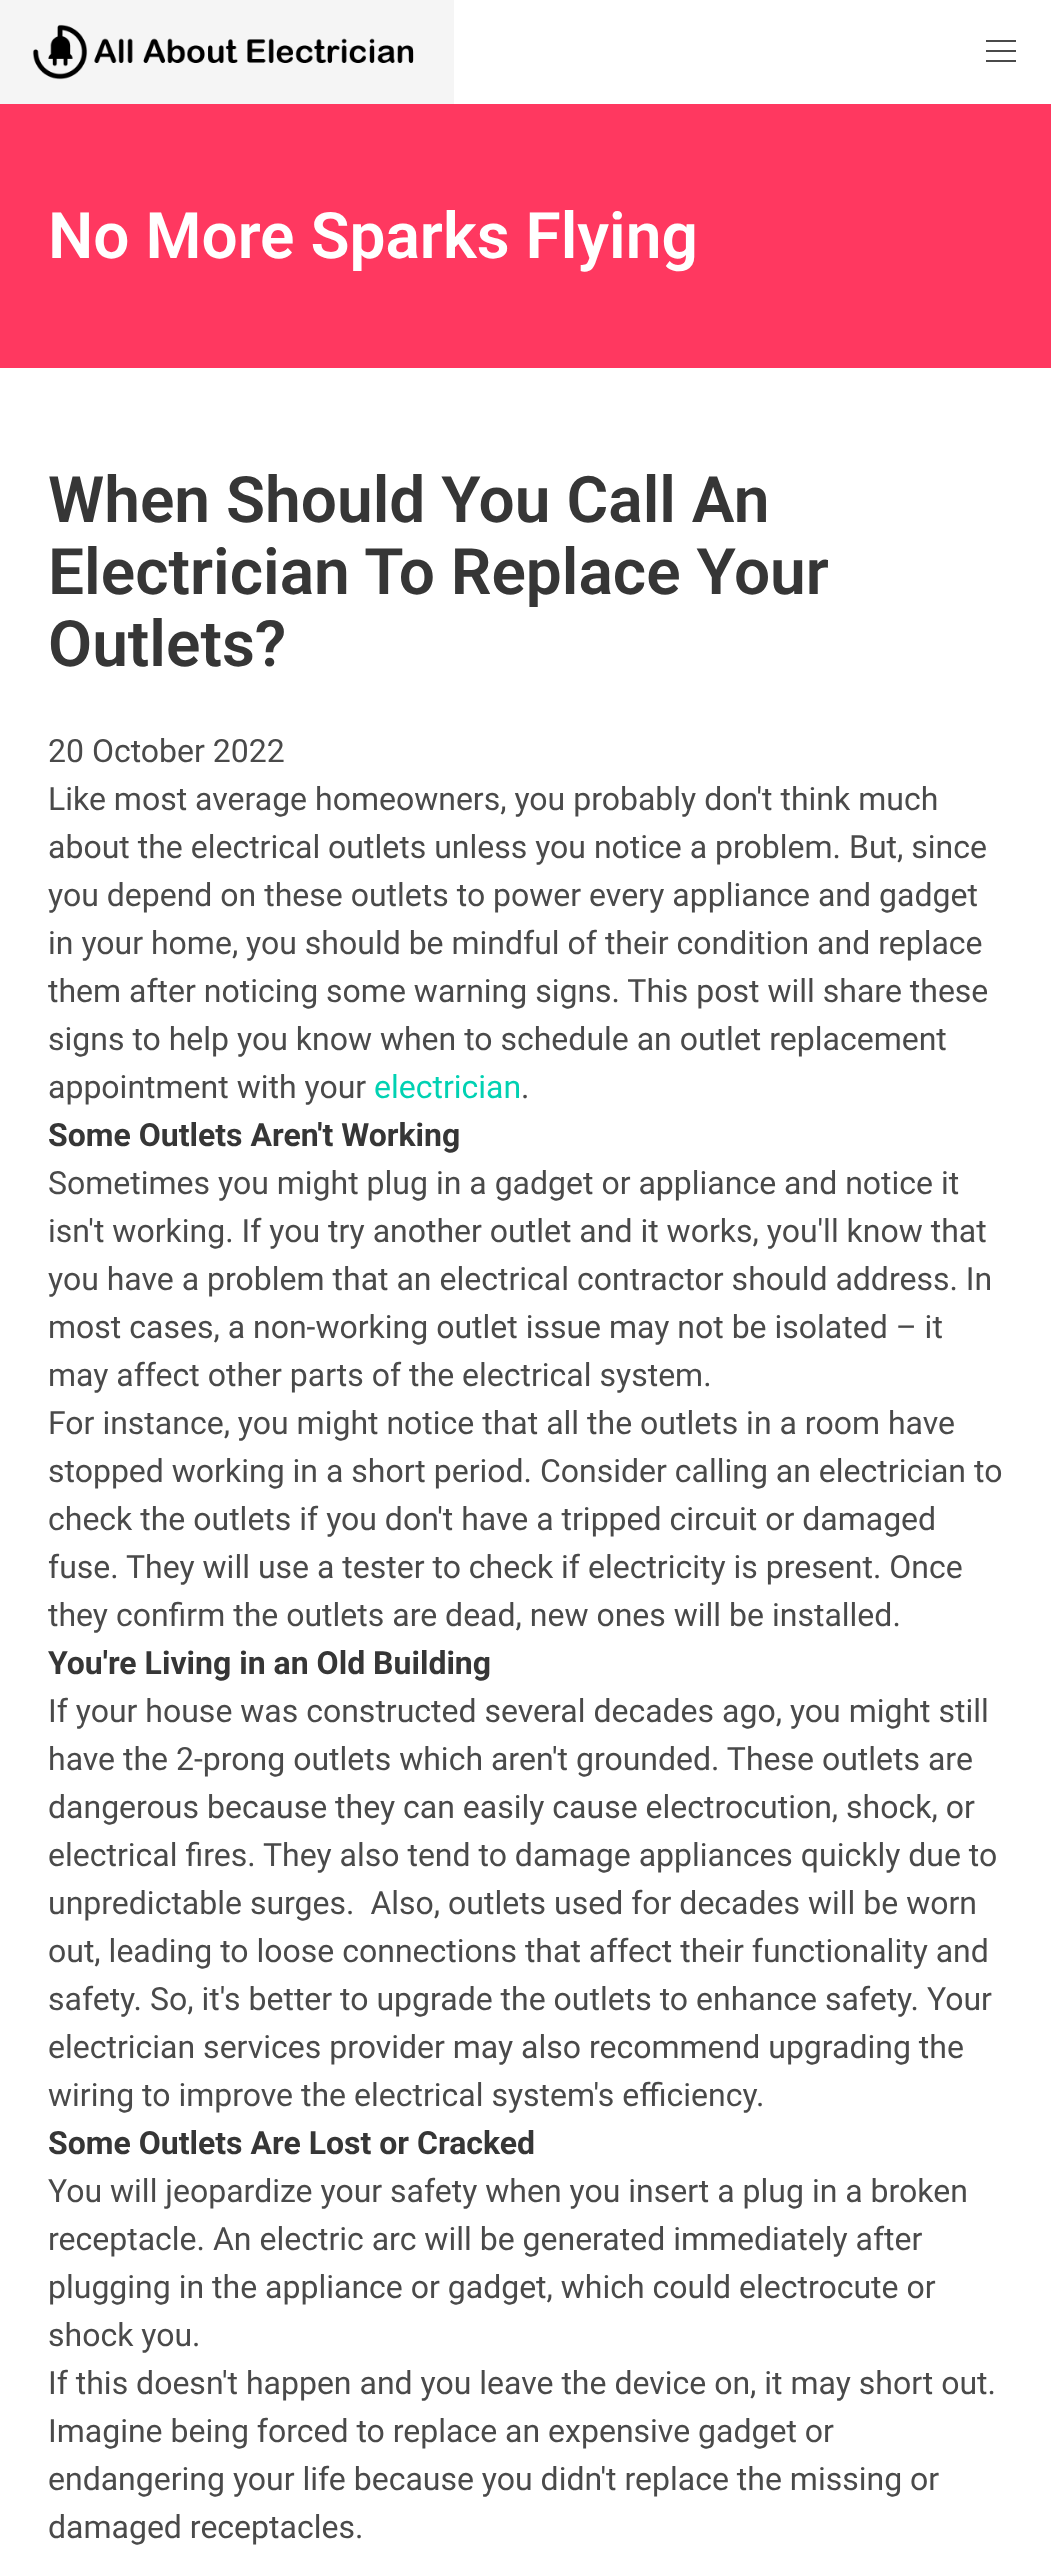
<?xml version="1.0" encoding="UTF-8"?>
<svg xmlns="http://www.w3.org/2000/svg" width="1051" height="2565">
    <rect width="100%" height="100%" fill="#FFFFFF"/>
    <rect x="0" y="0" width="454" height="104" fill="#F5F5F5"/>
    <image x="32" y="24" width="382" height="56" href="img_01.png"/>
    <rect x="986" y="40" width="30" height="2" fill="#4A4A4A"/>
    <rect x="986" y="50" width="30" height="2" fill="#4A4A4A"/>
    <rect x="986" y="60" width="30" height="2" fill="#4A4A4A"/>
    <rect x="0" y="104" width="1051" height="264" fill="#FF3860"/>
    <text x="48" y="258" font-family="Roboto" font-size="64" font-weight="600" fill="#FFFFFF">No More Sparks Flying</text>
    <text font-family="Roboto" font-size="64" font-weight="600" fill="#363636">
        <tspan x="48" y="522">When Should You Call An</tspan>
        <tspan x="48" y="594">Electrician To Replace Your</tspan>
        <tspan x="48" y="666">Outlets?</tspan>
    </text>
    <text font-family="Roboto" font-size="32" fill="#4A4A4A">
        <tspan x="48" y="762">20 October 2022</tspan>
        <tspan x="48" y="810">Like most average homeowners, you probably don't think much</tspan>
        <tspan x="48" y="858">about the electrical outlets unless you notice a problem. But, since</tspan>
        <tspan x="48" y="906">you depend on these outlets to power every appliance and gadget</tspan>
        <tspan x="48" y="954">in your home, you should be mindful of their condition and replace</tspan>
        <tspan x="48" y="1002">them after noticing some warning signs. This post will share these</tspan>
        <tspan x="48" y="1050">signs to help you know when to schedule an outlet replacement</tspan>
        <tspan x="48" y="1098">appointment with your</tspan>
    </text>
    <text x="374" y="1098" font-family="Roboto" font-size="32" fill="#00D1B2">electrician</text>
    <text x="521" y="1098" font-family="Roboto" font-size="32" fill="#4A4A4A">.</text>
    <text x="48" y="1146" font-family="Roboto" font-size="32" font-weight="700" fill="#363636">Some Outlets Aren't Working</text>
    <text font-family="Roboto" font-size="32" fill="#4A4A4A">
        <tspan x="48" y="1194">Sometimes you might plug in a gadget or appliance and notice it</tspan>
        <tspan x="48" y="1242">isn't working. If you try another outlet and it works, you'll know that</tspan>
        <tspan x="48" y="1290">you have a problem that an electrical contractor should address. In</tspan>
        <tspan x="48" y="1338">most cases, a non-working outlet issue may not be isolated – it</tspan>
        <tspan x="48" y="1386">may affect other parts of the electrical system.</tspan>
        <tspan x="48" y="1434">For instance, you might notice that all the outlets in a room have</tspan>
        <tspan x="48" y="1482">stopped working in a short period. Consider calling an electrician to</tspan>
        <tspan x="48" y="1530">check the outlets if you don't have a tripped circuit or damaged</tspan>
        <tspan x="48" y="1578">fuse. They will use a tester to check if electricity is present. Once</tspan>
        <tspan x="48" y="1626">they confirm the outlets are dead, new ones will be installed.</tspan>
    </text>
    <text x="48" y="1674" font-family="Roboto" font-size="32" font-weight="700" fill="#363636">You're Living in an Old Building</text>
    <text font-family="Roboto" font-size="32" fill="#4A4A4A" xml:space="preserve"><tspan x="48" y="1722">If your house was constructed several decades ago, you might still</tspan><tspan x="48" y="1770">have the 2-prong outlets which aren't grounded. These outlets are</tspan><tspan x="48" y="1818">dangerous because they can easily cause electrocution, shock, or</tspan><tspan x="48" y="1866">electrical fires. They also tend to damage appliances quickly due to</tspan><tspan x="48" y="1914">unpredictable surges.  Also, outlets used for decades will be worn</tspan><tspan x="48" y="1962">out, leading to loose connections that affect their functionality and</tspan><tspan x="48" y="2010">safety. So, it's better to upgrade the outlets to enhance safety. Your</tspan><tspan x="48" y="2058">electrician services provider may also recommend upgrading the</tspan><tspan x="48" y="2106">wiring to improve the electrical system's efficiency.</tspan></text>
    <text x="48" y="2154" font-family="Roboto" font-size="32" font-weight="700" fill="#363636">Some Outlets Are Lost or Cracked</text>
    <text font-family="Roboto" font-size="32" fill="#4A4A4A">
        <tspan x="48" y="2202">You will jeopardize your safety when you insert a plug in a broken</tspan>
        <tspan x="48" y="2250">receptacle. An electric arc will be generated immediately after</tspan>
        <tspan x="48" y="2298">plugging in the appliance or gadget, which could electrocute or</tspan>
        <tspan x="48" y="2346">shock you.</tspan>
        <tspan x="48" y="2394">If this doesn't happen and you leave the device on, it may short out.</tspan>
        <tspan x="48" y="2442">Imagine being forced to replace an expensive gadget or</tspan>
        <tspan x="48" y="2490">endangering your life because you didn't replace the missing or</tspan>
        <tspan x="48" y="2538">damaged receptacles.</tspan>
    </text>
</svg>
